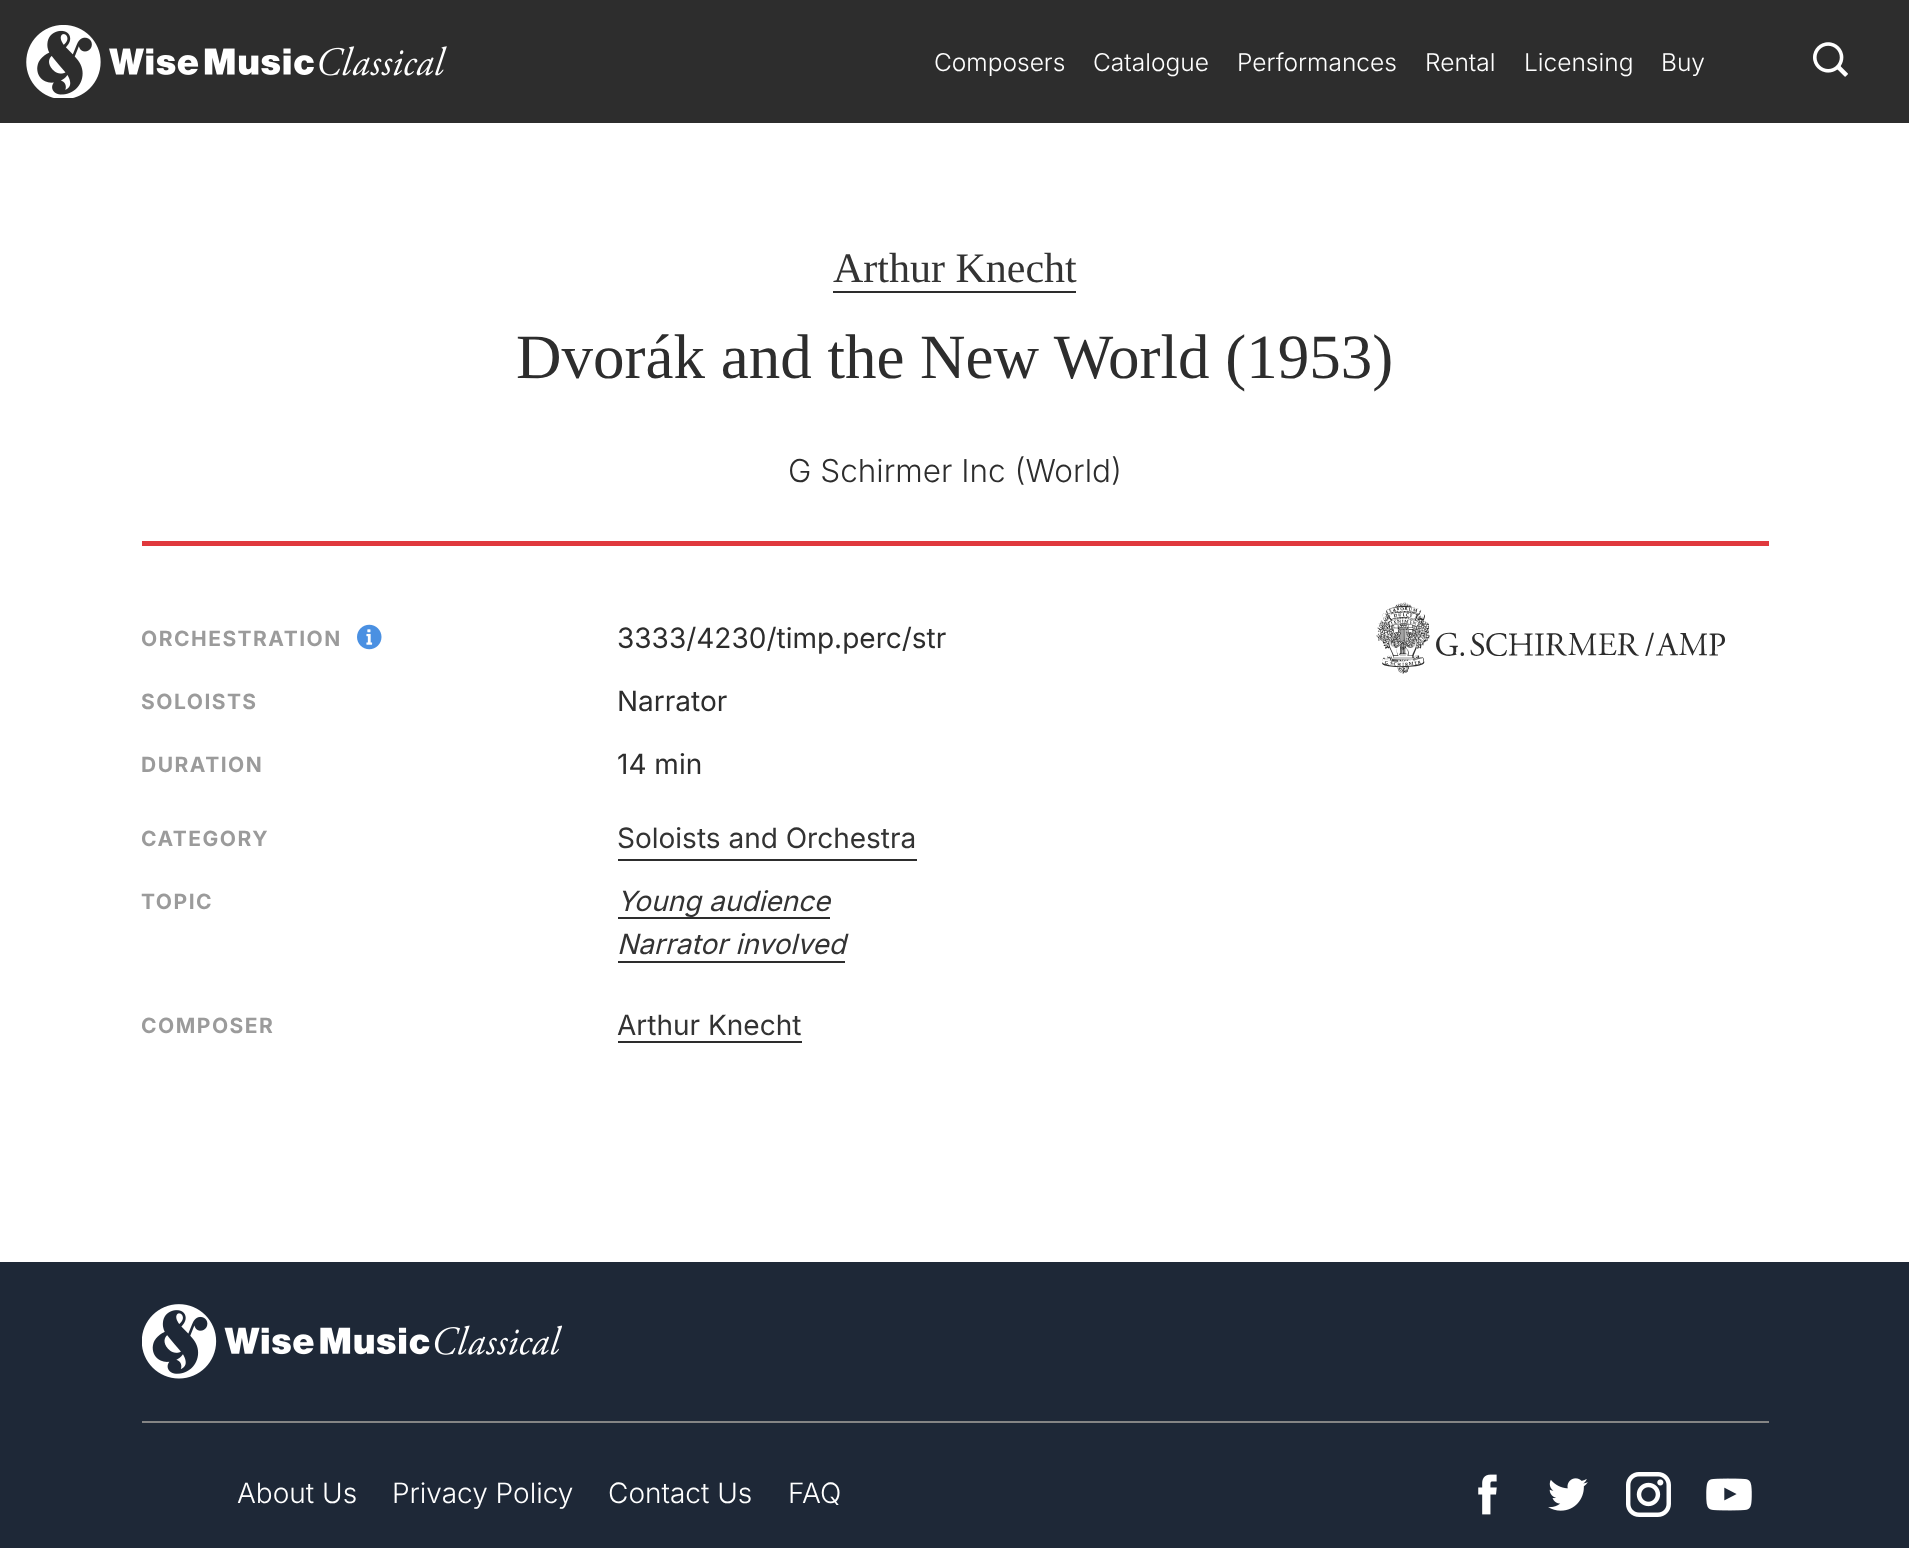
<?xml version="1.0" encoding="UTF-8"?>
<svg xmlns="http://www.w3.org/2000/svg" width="1909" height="1548">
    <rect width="100%" height="100%" fill="#FFFFFF"/>
    <rect x="0" y="0" width="1909" height="123" fill="#2D2D2D"/>
    <image x="26" y="25" width="421" height="73" href="img_01.png"/>
    <text x="934" y="71" font-family="Inter" font-size="24.5" font-weight="300" fill="#FFFFFF">Composers</text>
    <text x="1093" y="71" font-family="Inter" font-size="24.5" font-weight="300" fill="#FFFFFF">Catalogue</text>
    <text x="1237" y="71" font-family="Inter" font-size="24.5" font-weight="300" fill="#FFFFFF">Performances</text>
    <text x="1425" y="71" font-family="Inter" font-size="24.5" font-weight="300" fill="#FFFFFF">Rental</text>
    <text x="1524" y="71" font-family="Inter" font-size="24.5" font-weight="300" fill="#FFFFFF">Licensing</text>
    <text x="1661" y="71" font-family="Inter" font-size="24.5" font-weight="300" fill="#FFFFFF">Buy</text>
    <image x="1813" y="42" width="35" height="35" href="img_02.png"/>
    <rect x="142" y="541" width="1627" height="5" fill="#E0393D"/>
    <text x="833" y="282" font-family="Liberation Serif" font-size="42" fill="#333333">Arthur Knecht</text>
    <rect x="833" y="291" width="243" height="2" fill="#2D2D2D"/>
    <text x="516" y="378" font-family="Liberation Serif" font-size="63" fill="#2D2D2D">Dvorák and the New World (1953)</text>
    <text x="788" y="482" font-family="Inter" font-size="31.5" font-weight="300" fill="#2D2D2D">G Schirmer Inc (World)</text>
    <text x="141" y="646" font-family="Inter" font-size="21" font-weight="700" letter-spacing="1.5" fill="#9B9B9B">ORCHESTRATION</text>
    <image x="357" y="624" width="25" height="26" href="img_03.png"/>
    <text x="617" y="648" font-family="Inter" font-size="28" fill="#2D2D2D">3333/4230/timp.perc/str</text>
    <text x="141" y="709" font-family="Inter" font-size="21" font-weight="700" letter-spacing="1.5" fill="#9B9B9B">SOLOISTS</text>
    <text x="617" y="711" font-family="Inter" font-size="28" fill="#2D2D2D">Narrator</text>
    <text x="141" y="772" font-family="Inter" font-size="21" font-weight="700" letter-spacing="1.5" fill="#9B9B9B">DURATION</text>
    <text x="617" y="774" font-family="Inter" font-size="28" fill="#2D2D2D">14 min</text>
    <text x="141" y="846" font-family="Inter" font-size="21" font-weight="700" letter-spacing="1.5" fill="#9B9B9B">CATEGORY</text>
    <rect x="618" y="859" width="299" height="2" fill="#2D2D2D"/>
    <text x="617" y="848" font-family="Inter" font-size="28" fill="#333333">Soloists and Orchestra</text>
    <text x="141" y="909" font-family="Inter" font-size="21" font-weight="700" letter-spacing="1.5" fill="#9B9B9B">TOPIC</text>
    <rect x="618" y="917" width="212" height="2" fill="#2D2D2D"/>
    <text font-family="Inter" font-size="28" font-style="italic" fill="#333333">
        <tspan x="617" y="911">Young audience</tspan>
        <tspan x="617" y="954">Narrator involved</tspan>
    </text>
    <rect x="618" y="961" width="227" height="2" fill="#2D2D2D"/>
    <text x="141" y="1033" font-family="Inter" font-size="21" font-weight="700" letter-spacing="1.5" fill="#9B9B9B">COMPOSER</text>
    <text x="617" y="1035" font-family="Inter" font-size="28" fill="#333333">Arthur Knecht</text>
    <rect x="618" y="1041" width="184" height="2" fill="#2D2D2D"/>
    <image x="1376" y="602" width="349" height="72" href="img_04.png"/>
    <rect x="0" y="1262" width="1909" height="286" fill="#1E2837"/>
    <rect x="142" y="1421" width="1627" height="2" fill="#858585"/>
    <image x="142" y="1304" width="420" height="75" href="img_05.png"/>
    <text x="237" y="1503" font-family="Inter" font-size="28" font-weight="300" fill="#FFFFFF">About Us</text>
    <text x="392" y="1503" font-family="Inter" font-size="28" font-weight="300" fill="#FFFFFF">Privacy Policy</text>
    <text x="608" y="1503" font-family="Inter" font-size="28" font-weight="300" fill="#FFFFFF">Contact Us</text>
    <text x="788" y="1503" font-family="Inter" font-size="28" font-weight="300" fill="#FFFFFF">FAQ</text>
    <image x="1478" y="1474" width="19" height="41" href="img_06.png"/>
    <image x="1548" y="1478" width="40" height="33" href="img_07.png"/>
    <image x="1626" y="1472" width="45" height="45" href="img_08.png"/>
    <image x="1706" y="1478" width="46" height="33" href="img_09.png"/>
</svg>
